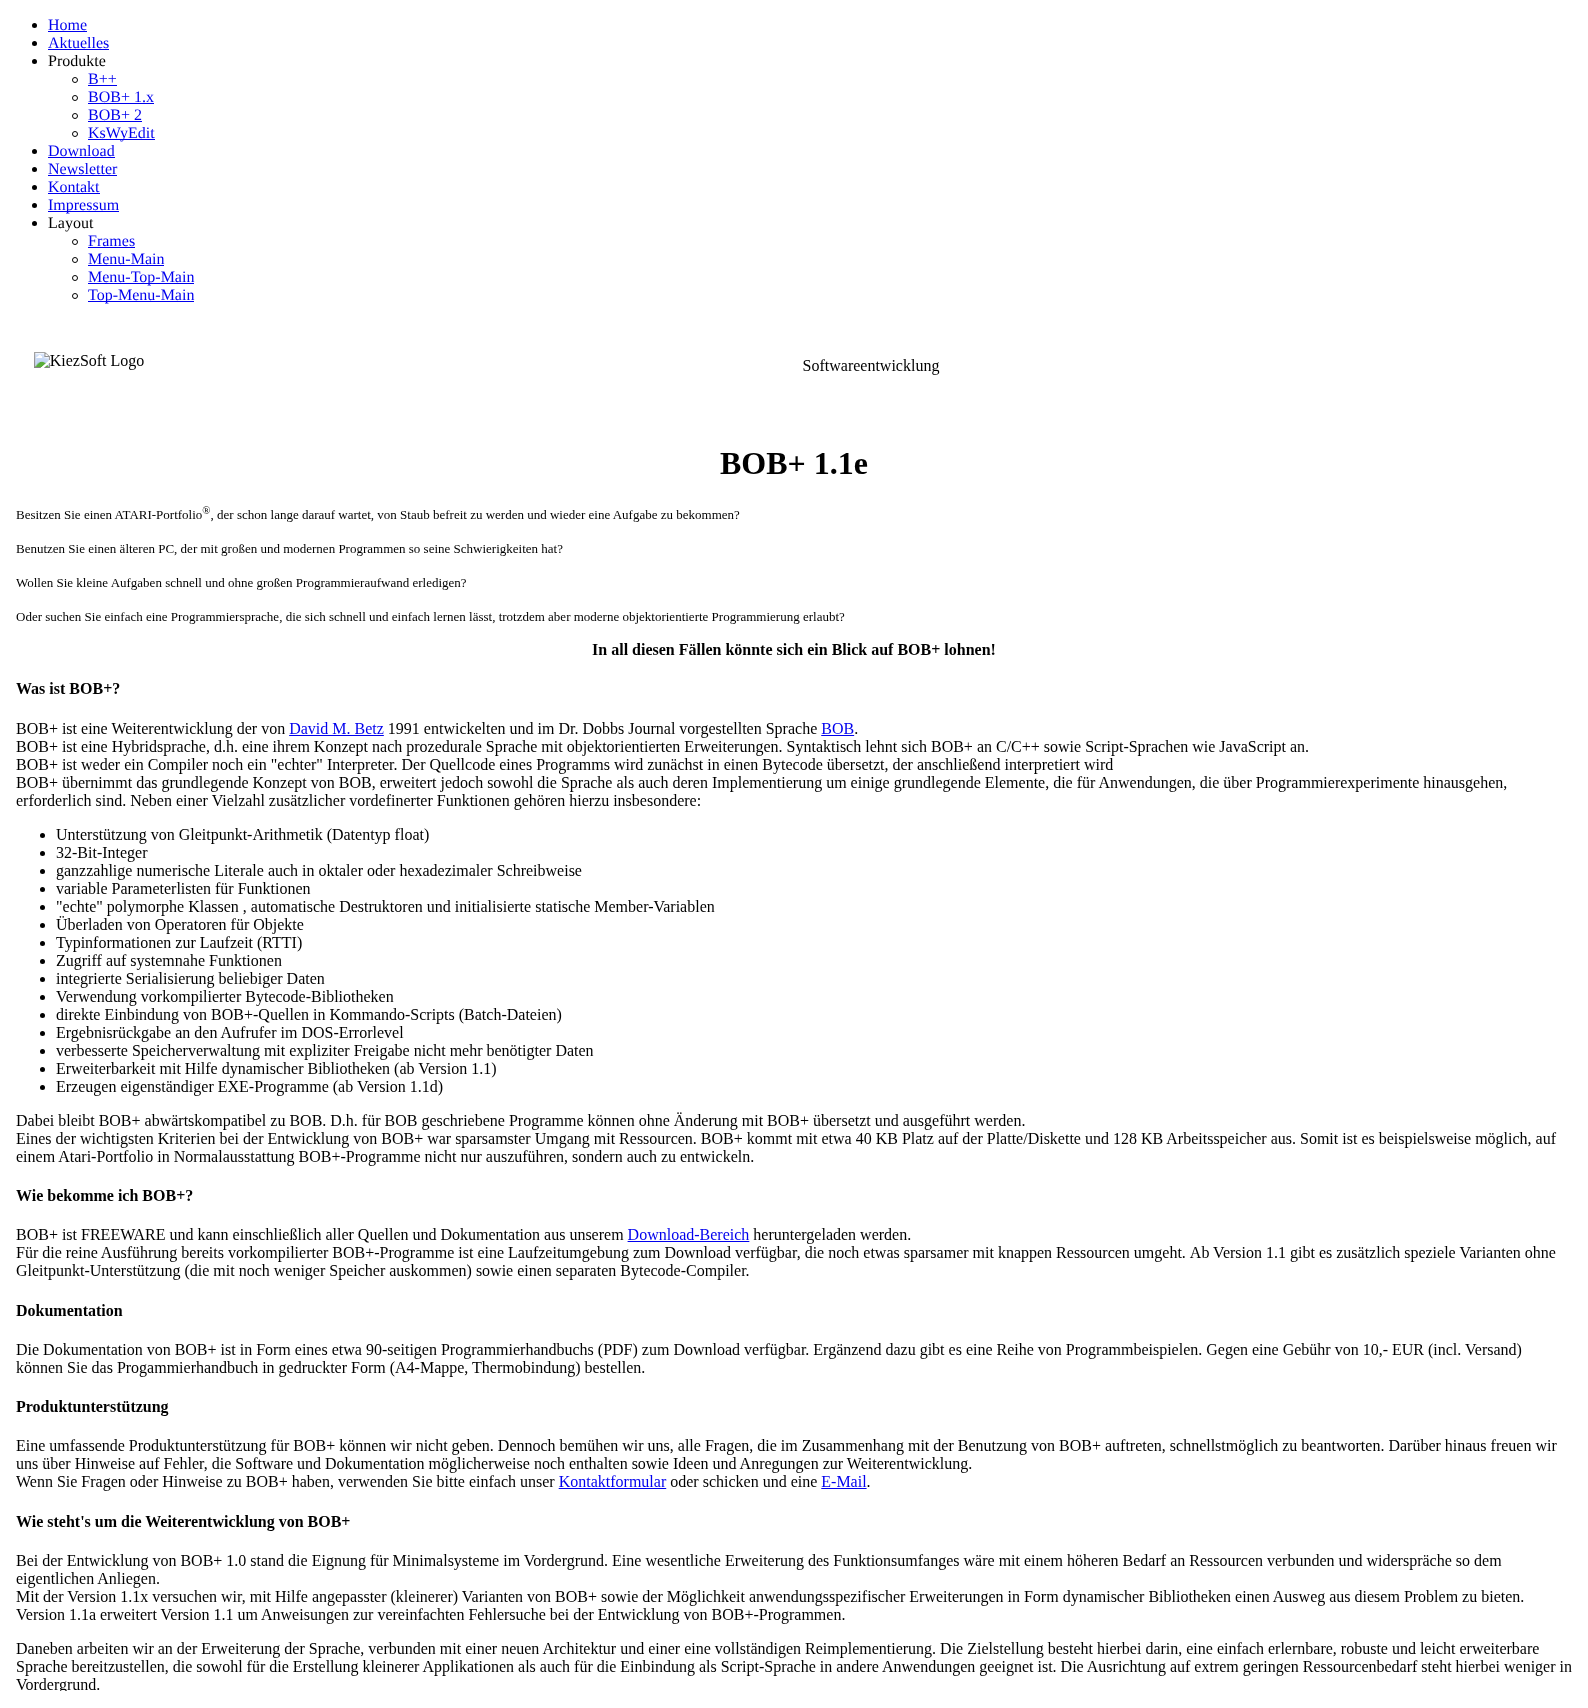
<?xml version="1.0" encoding="UTF-8"?>
<svg xmlns="http://www.w3.org/2000/svg" width="1588" height="1708">
    <rect width="100%" height="100%" fill="#FFFFFF"/>
    <circle cx="34.5" cy="25.5" r="2.5" fill="#000000"/>
    <text x="48" y="30" font-family="Liberation Serif" font-size="16" fill="#0000EE">Home</text>
    <rect x="48" y="31" width="39" height="1" fill="#0000EE"/>
    <circle cx="34.5" cy="43.5" r="2.5" fill="#000000"/>
    <text x="48" y="48" font-family="Liberation Serif" font-size="16" fill="#0000EE">Aktuelles</text>
    <rect x="48" y="49" width="61" height="1" fill="#0000EE"/>
    <circle cx="34.5" cy="61.5" r="2.5" fill="#000000"/>
    <text x="48" y="66" font-family="Liberation Serif" font-size="16" fill="#000000">Produkte</text>
    <circle cx="75" cy="80" r="2.5" fill="none" stroke="#000000"/>
    <text x="88" y="84" font-family="Liberation Serif" font-size="16" fill="#0000EE">B++</text>
    <rect x="88" y="85" width="29" height="1" fill="#0000EE"/>
    <circle cx="75" cy="98" r="2.5" fill="none" stroke="#000000"/>
    <text x="88" y="102" font-family="Liberation Serif" font-size="16" fill="#0000EE">BOB+ 1.x</text>
    <rect x="88" y="103" width="66" height="1" fill="#0000EE"/>
    <circle cx="75" cy="116" r="2.5" fill="none" stroke="#000000"/>
    <text x="88" y="120" font-family="Liberation Serif" font-size="16" fill="#0000EE">BOB+ 2</text>
    <rect x="88" y="121" width="54" height="1" fill="#0000EE"/>
    <circle cx="75" cy="134" r="2.5" fill="none" stroke="#000000"/>
    <rect x="88" y="139" width="67" height="1" fill="#0000EE"/>
    <text x="88" y="138" font-family="Liberation Serif" font-size="16" fill="#0000EE">KsWyEdit</text>
    <circle cx="34.5" cy="151.5" r="2.5" fill="#000000"/>
    <text x="48" y="156" font-family="Liberation Serif" font-size="16" fill="#0000EE">Download</text>
    <rect x="48" y="157" width="67" height="1" fill="#0000EE"/>
    <circle cx="34.5" cy="169.5" r="2.5" fill="#000000"/>
    <text x="48" y="174" font-family="Liberation Serif" font-size="16" fill="#0000EE">Newsletter</text>
    <rect x="48" y="175" width="69" height="1" fill="#0000EE"/>
    <circle cx="34.5" cy="187.5" r="2.5" fill="#000000"/>
    <text x="48" y="192" font-family="Liberation Serif" font-size="16" fill="#0000EE">Kontakt</text>
    <rect x="48" y="193" width="52" height="1" fill="#0000EE"/>
    <circle cx="34.5" cy="205.5" r="2.5" fill="#000000"/>
    <rect x="48" y="211" width="71" height="1" fill="#0000EE"/>
    <text x="48" y="210" font-family="Liberation Serif" font-size="16" fill="#0000EE">Impressum</text>
    <circle cx="34.5" cy="223.5" r="2.5" fill="#000000"/>
    <text x="48" y="228" font-family="Liberation Serif" font-size="16" fill="#000000">Layout</text>
    <circle cx="75" cy="242" r="2.5" fill="none" stroke="#000000"/>
    <text x="88" y="246" font-family="Liberation Serif" font-size="16" fill="#0000EE">Frames</text>
    <rect x="88" y="247" width="47" height="1" fill="#0000EE"/>
    <circle cx="75" cy="260" r="2.5" fill="none" stroke="#000000"/>
    <text x="88" y="264" font-family="Liberation Serif" font-size="16" fill="#0000EE">Menu-Main</text>
    <rect x="88" y="265" width="76" height="1" fill="#0000EE"/>
    <circle cx="75" cy="278" r="2.5" fill="none" stroke="#000000"/>
    <rect x="88" y="283" width="106" height="1" fill="#0000EE"/>
    <text x="88" y="282" font-family="Liberation Serif" font-size="16" fill="#0000EE">Menu-Top-Main</text>
    <circle cx="75" cy="296" r="2.5" fill="none" stroke="#000000"/>
    <rect x="88" y="301" width="106" height="1" fill="#0000EE"/>
    <text x="88" y="300" font-family="Liberation Serif" font-size="16" fill="#0000EE">Top-Menu-Main</text>
    <image x="34" y="352" width="906" height="23" href="img_01.png"/>
    <image x="16" y="453" width="1556" height="1238" href="img_02.png"/>
</svg>
